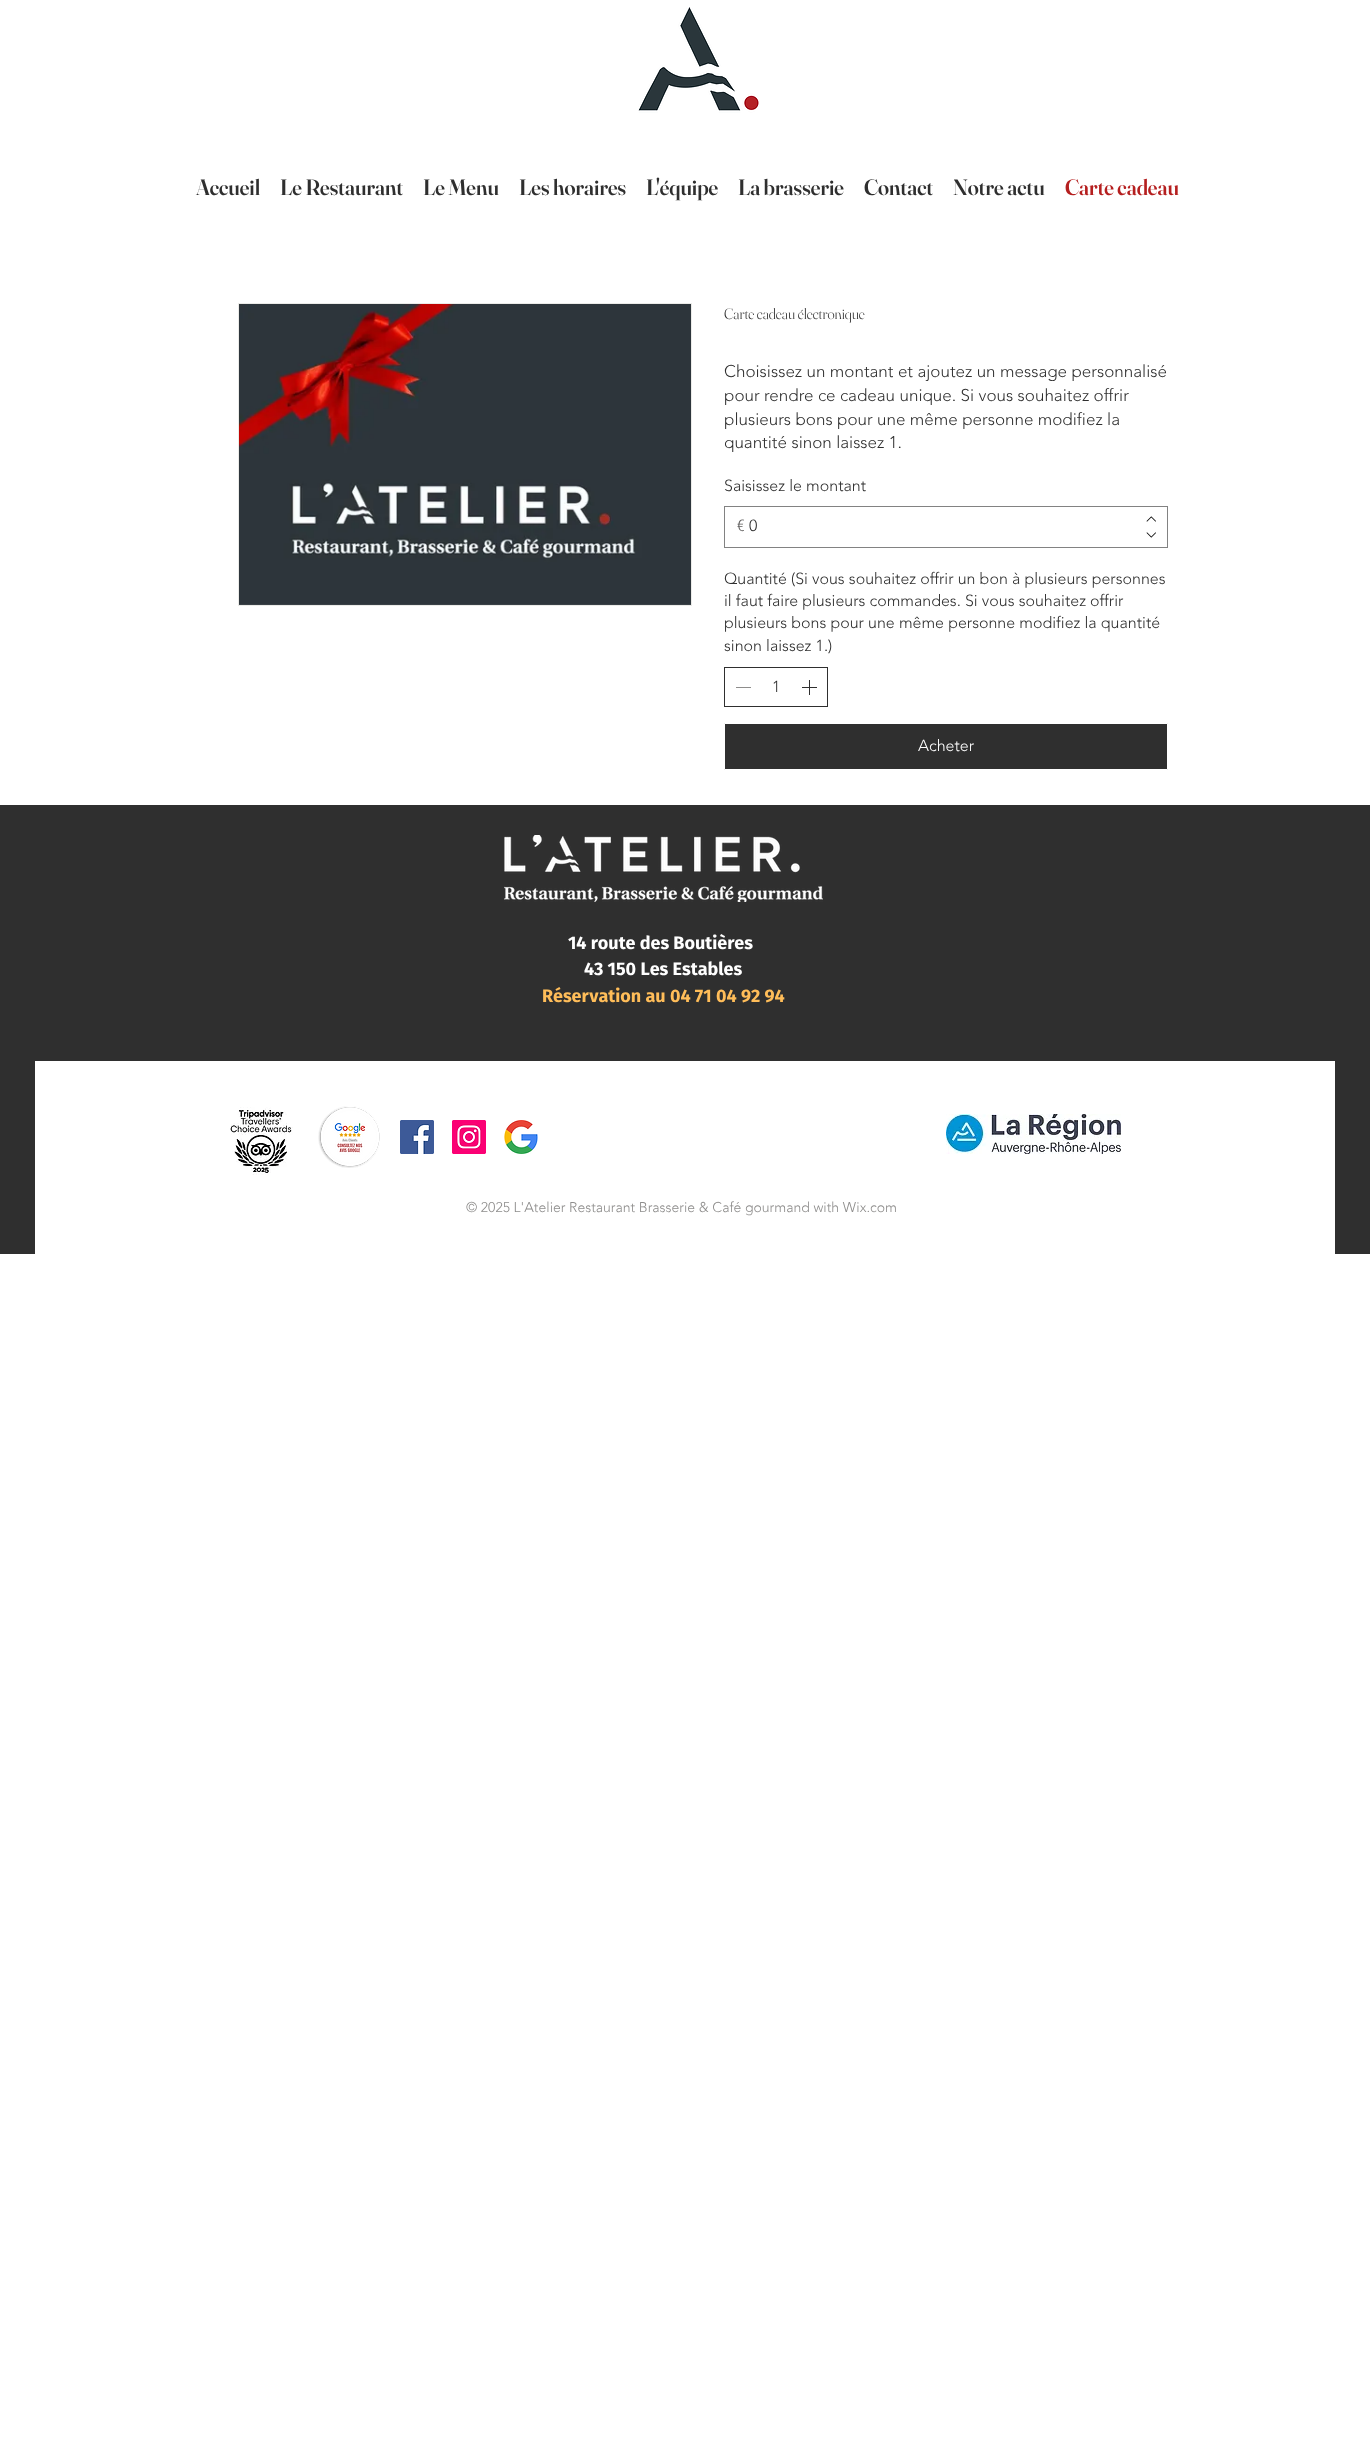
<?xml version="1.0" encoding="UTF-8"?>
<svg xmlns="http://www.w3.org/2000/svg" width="1370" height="2451">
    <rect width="100%" height="100%" fill="#FFFFFF"/>
    <image x="638" y="7" width="121" height="106" href="img_01.png"/>
    <text x="196" y="195" font-family="Fraunces" font-size="22" font-weight="600" fill="#2F2F2F">Accueil</text>
    <text x="280" y="195" font-family="Fraunces" font-size="22" font-weight="600" fill="#2F2F2F">Le Restaurant</text>
    <text x="423" y="195" font-family="Fraunces" font-size="22" font-weight="600" fill="#2F2F2F">Le Menu</text>
    <text x="519" y="195" font-family="Fraunces" font-size="22" font-weight="600" fill="#2F2F2F">Les horaires</text>
    <text x="646" y="195" font-family="Fraunces" font-size="22" font-weight="600" fill="#2F2F2F">L'équipe</text>
    <text x="738" y="195" font-family="Fraunces" font-size="22" font-weight="600" fill="#2F2F2F">La brasserie</text>
    <text x="864" y="195" font-family="Fraunces" font-size="22" font-weight="600" fill="#2F2F2F">Contact</text>
    <text x="953" y="195" font-family="Fraunces" font-size="22" font-weight="600" fill="#2F2F2F">Notre actu</text>
    <text x="1065" y="195" font-family="Fraunces" font-size="22" font-weight="600" fill="#B51F1F">Carte cadeau</text>
    <rect x="238.5" y="303.5" width="453" height="302" fill="none" stroke="#EBEBE8"/>
    <image x="239" y="304" width="452" height="301" href="img_02.png"/>
    <text x="724" y="319" font-family="Fraunces" font-size="15" font-weight="300" fill="#2F2F2F">Carte cadeau électronique</text>
    <text font-family="'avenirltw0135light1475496'" font-size="17" font-weight="300" fill="#2F2F2F">
        <tspan x="724" y="377">Choisissez un montant et ajoutez un message personnalisé</tspan>
        <tspan x="724" y="401">pour rendre ce cadeau unique. Si vous souhaitez offrir</tspan>
        <tspan x="724" y="425">plusieurs bons pour une même personne modifiez la</tspan>
        <tspan x="724" y="448">quantité sinon laissez 1.</tspan>
    </text>
    <text x="724" y="491" font-family="'avenirltw0135light1475496'" font-size="16" font-weight="300" fill="#2F2F2F">Saisissez le montant</text>
    <rect x="724.5" y="506.5" width="443" height="41" fill="none" stroke="#828282"/>
    <text x="737" y="531" font-family="'avenirltw0135light1475496'" font-size="16" font-weight="300" fill="#5F5E5D">€</text>
    <text x="749" y="531" font-family="'avenirltw0135light1475496'" font-size="16" font-weight="300" fill="#2F2F2F">0</text>
    <image x="1146" y="516" width="10" height="6" href="img_03.png"/>
    <image x="1146" y="532" width="10" height="6" href="img_04.png"/>
    <text font-family="'avenirltw0135light1475496'" font-size="16" font-weight="300" fill="#2F2F2F">
        <tspan x="724" y="584">Quantité (Si vous souhaitez offrir un bon à plusieurs personnes</tspan>
        <tspan x="724" y="606">il faut faire plusieurs commandes. Si vous souhaitez offrir</tspan>
        <tspan x="724" y="628">plusieurs bons pour une même personne modifiez la quantité</tspan>
        <tspan x="724" y="651">sinon laissez 1.)</tspan>
    </text>
    <rect x="724.5" y="667.5" width="103" height="39" fill="none" stroke="#2F2F2F"/>
    <rect x="736" y="687" width="15" height="1" fill="#8E8D8C"/>
    <text x="772" y="692" font-family="'avenirltw0135light1475496'" font-size="16" font-weight="300" fill="#2F2F2F">1</text>
    <image x="802" y="680" width="15" height="15" href="img_05.png"/>
    <rect x="724.5" y="723.5" width="443" height="46" rx="0.5" fill="#2F2F2F" stroke="#FFFFFF"/>
    <text x="918" y="751" font-family="'avenirltw0135light1475496'" font-size="16" font-weight="300" fill="#FFFFFF">Acheter</text>
    <rect x="0" y="805" width="1370" height="449" fill="#2F2F2F"/>
    <image x="504" y="835" width="319" height="67" href="img_06.png"/>
    <text x="568" y="949" font-family="Fira Sans" font-size="18" font-weight="700" fill="#FFFFFF">14 route des Boutières</text>
    <text x="584" y="975" font-family="Fira Sans" font-size="18" font-weight="700" fill="#FFFFFF">43 150 Les Estables</text>
    <text x="542" y="1002" font-family="Fira Sans" font-size="18" font-weight="700" fill="#FFBD59">Réservation au 04 71 04 92 94</text>
    <rect x="35" y="1061" width="1300" height="193" fill="#FFFFFF"/>
    <image x="230" y="1107" width="63" height="68" href="img_07.png"/>
    <image x="318" y="1106" width="62" height="62" href="img_08.png"/>
    <image x="400" y="1120" width="34" height="34" href="img_09.png"/>
    <image x="452" y="1120" width="34" height="34" href="img_10.png"/>
    <image x="504" y="1120" width="34" height="34" href="img_11.png"/>
    <image x="946" y="1114" width="175" height="40" href="img_12.png"/>
    <text x="466" y="1212" font-family="'avenirltw0135light1475496'" font-size="14" font-weight="300" fill="#8E8D8C">© 2025 L'Atelier Restaurant Brasserie &amp; Café gourmand with Wix.com</text>
</svg>
